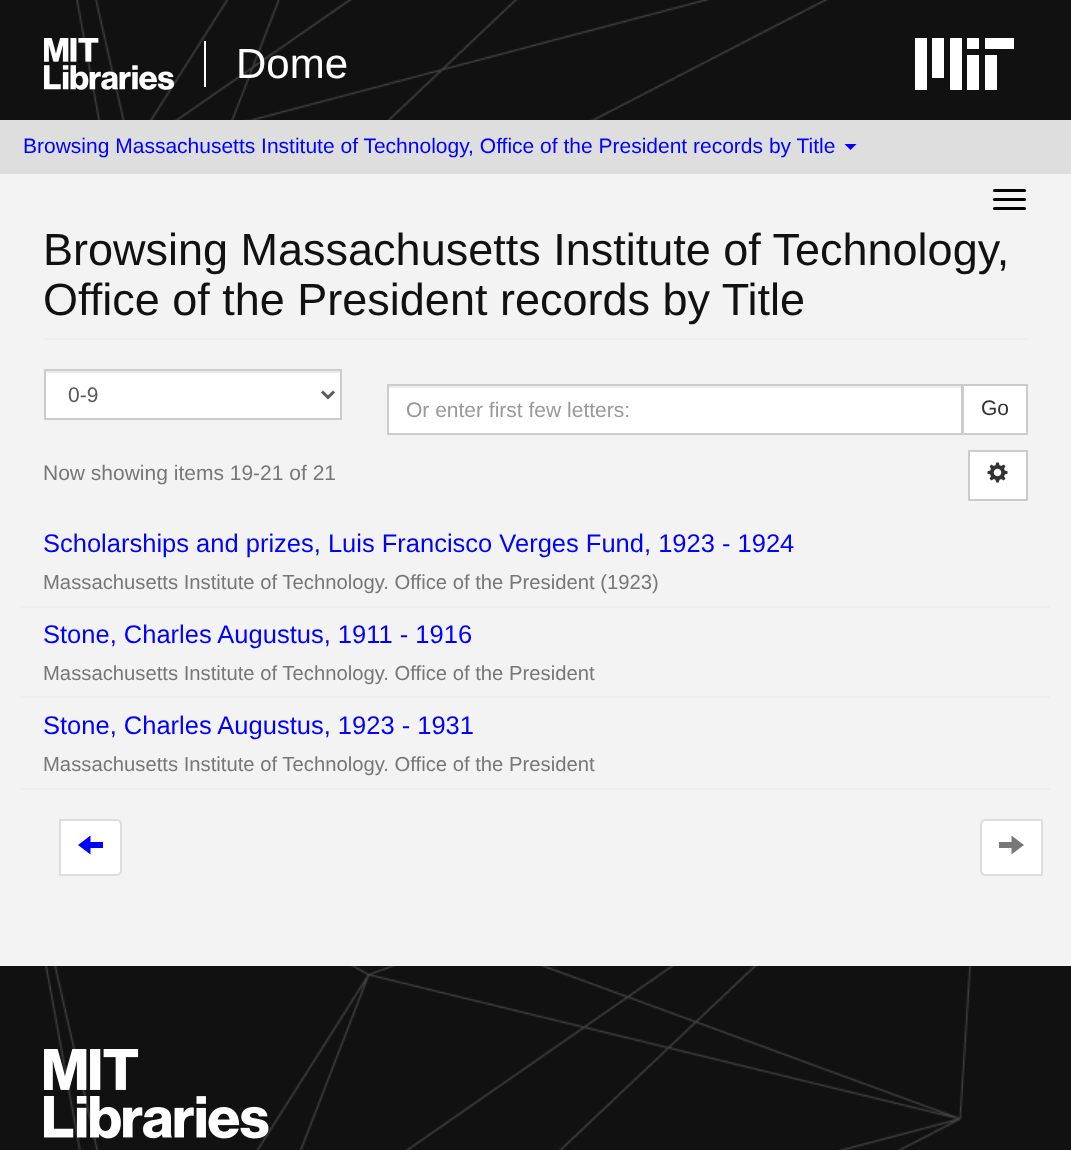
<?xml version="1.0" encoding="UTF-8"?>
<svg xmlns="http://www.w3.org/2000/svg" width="1071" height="1150">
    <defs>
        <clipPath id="clip1"><rect x="407" y="398" width="537" height="24"/></clipPath>
    </defs>
    <rect width="100%" height="100%" fill="#F3F3F3"/>
    <rect x="0" y="0" width="1071" height="120" fill="#111111"/>
    <image x="75" y="0" width="753" height="120" href="img_01.png"/>
    <image x="44" y="38" width="130" height="52" href="img_02.png"/>
    <text x="236" y="78" font-family="Liberation Sans" font-size="42" fill="#FFFFFF">Dome</text>
    <rect x="204" y="41" width="2" height="46" fill="#FFFFFF"/>
    <path d="M 967 90 H 979 V 55 H 967 Z M 985 49 H 1014 V 38 H 985 Z M 967 38 H 979 V 49 H 967 Z M 950 90 H 962 V 38 H 950 Z M 932 78 H 944 V 38 H 932 Z M 915 90 H 927 V 38 H 915 Z M 985 90 H 997 V 55 H 985 Z" fill="#FFFFFF"/>
    <rect x="0" y="120" width="1071" height="54" fill="#DEDEDE"/>
    <text x="23" y="153" font-family="Liberation Sans" font-size="21" fill="#0000FF">Browsing Massachusetts Institute of Technology, Office of the President records by Title</text>
    <path d="M 844.5 144 H 856.5 L 850.5 150 Z" fill="#0000FF"/>
    <rect x="993" y="189" width="33" height="3" rx="1.5" fill="#000000"/>
    <rect x="993" y="198" width="33" height="3" rx="1.5" fill="#000000"/>
    <rect x="993" y="207" width="33" height="3" rx="1.5" fill="#000000"/>
    <rect x="44" y="338" width="984" height="2" fill="#EEEEEE"/>
    <text font-family="Liberation Sans" font-size="45" fill="#111111">
        <tspan x="43" y="265">Browsing Massachusetts Institute of Technology,</tspan>
        <tspan x="43" y="315">Office of the President records by Title</tspan>
    </text>
    <rect x="46" y="373" width="294" height="45" fill="#FFFFFF"/>
    <rect x="45" y="371" width="296" height="2" fill="#ECECEC"/>
    <rect x="45" y="370" width="296" height="49" fill="none" stroke="#CCCCCC" stroke-width="2"/>
    <path d="M 322 391.5 L 328 397.5 L 334 391.5" fill="none" stroke="#595959" stroke-width="3"/>
    <text x="68" y="402" font-family="Liberation Sans" font-size="21" fill="#595959">0-9</text>
    <rect x="389" y="388" width="572" height="45" fill="#FFFFFF"/>
    <rect x="389" y="386" width="573" height="2" fill="#ECECEC"/>
    <rect x="963" y="385" width="64" height="49" fill="#FFFFFF" stroke="#CCCCCC" stroke-width="2"/>
    <rect x="388" y="385" width="574" height="49" fill="none" stroke="#CCCCCC" stroke-width="2"/>
    <g clip-path="url(#clip1)">
        <text x="406" y="417" font-family="Liberation Sans" font-size="21" fill="#999999">Or enter first few letters:</text>
    </g>
    <text x="981" y="415" font-family="Liberation Sans" font-size="21" fill="#333333">Go</text>
    <text x="43" y="480" font-family="Liberation Sans" font-size="21" fill="#777777">Now showing items 19-21 of 21</text>
    <rect x="969" y="451" width="58" height="49" fill="#FFFFFF" stroke="#CCCCCC" stroke-width="2"/>
    <image x="987" y="462" width="21" height="21" href="img_03.png"/>
    <rect x="21" y="606" width="1029" height="2" fill="#EEEEEE"/>
    <text x="43" y="552" font-family="Liberation Sans" font-size="25.5" fill="#0000FF">Scholarships and prizes, Luis Francisco Verges Fund, 1923 - 1924</text>
    <text x="43" y="589" font-family="Liberation Sans" font-size="20.25" fill="#777777">Massachusetts Institute of Technology. Office of the President (1923)</text>
    <rect x="21" y="696" width="1029" height="2" fill="#EEEEEE"/>
    <text x="43" y="643" font-family="Liberation Sans" font-size="25.5" fill="#0000FF">Stone, Charles Augustus, 1911 - 1916</text>
    <text x="43" y="680" font-family="Liberation Sans" font-size="20.25" fill="#777777">Massachusetts Institute of Technology. Office of the President</text>
    <rect x="21" y="788" width="1029" height="2" fill="#EEEEEE"/>
    <text x="43" y="734" font-family="Liberation Sans" font-size="25.5" fill="#0000FF">Stone, Charles Augustus, 1923 - 1931</text>
    <text x="43" y="771" font-family="Liberation Sans" font-size="20.25" fill="#777777">Massachusetts Institute of Technology. Office of the President</text>
    <path d="M 60 820 H 117 C 119 820 121 822 121 824 V 871 C 121 873 119 875 117 875 H 60 Z" fill="#FFFFFF" stroke="#DDDDDD" stroke-width="2"/>
    <path d="M 78 845 L 90.5 835.5 V 842 H 103 V 848 H 90.5 V 854.5 Z" fill="#0000FF"/>
    <path d="M 985 820 H 1042 V 875 H 985 C 983 875 981 873 981 871 V 824 C 981 822 983 820 985 820 Z" fill="#FFFFFF" stroke="#DDDDDD" stroke-width="2"/>
    <path d="M 999 848 V 842 H 1011.5 V 835.5 L 1024 845 L 1011.5 854.5 V 848 Z" fill="#777777"/>
    <rect x="0" y="966" width="1071" height="184" fill="#111111"/>
    <image x="44" y="966" width="928" height="184" href="img_04.png"/>
    <image x="44" y="1049" width="225" height="90" href="img_05.png"/>
</svg>
